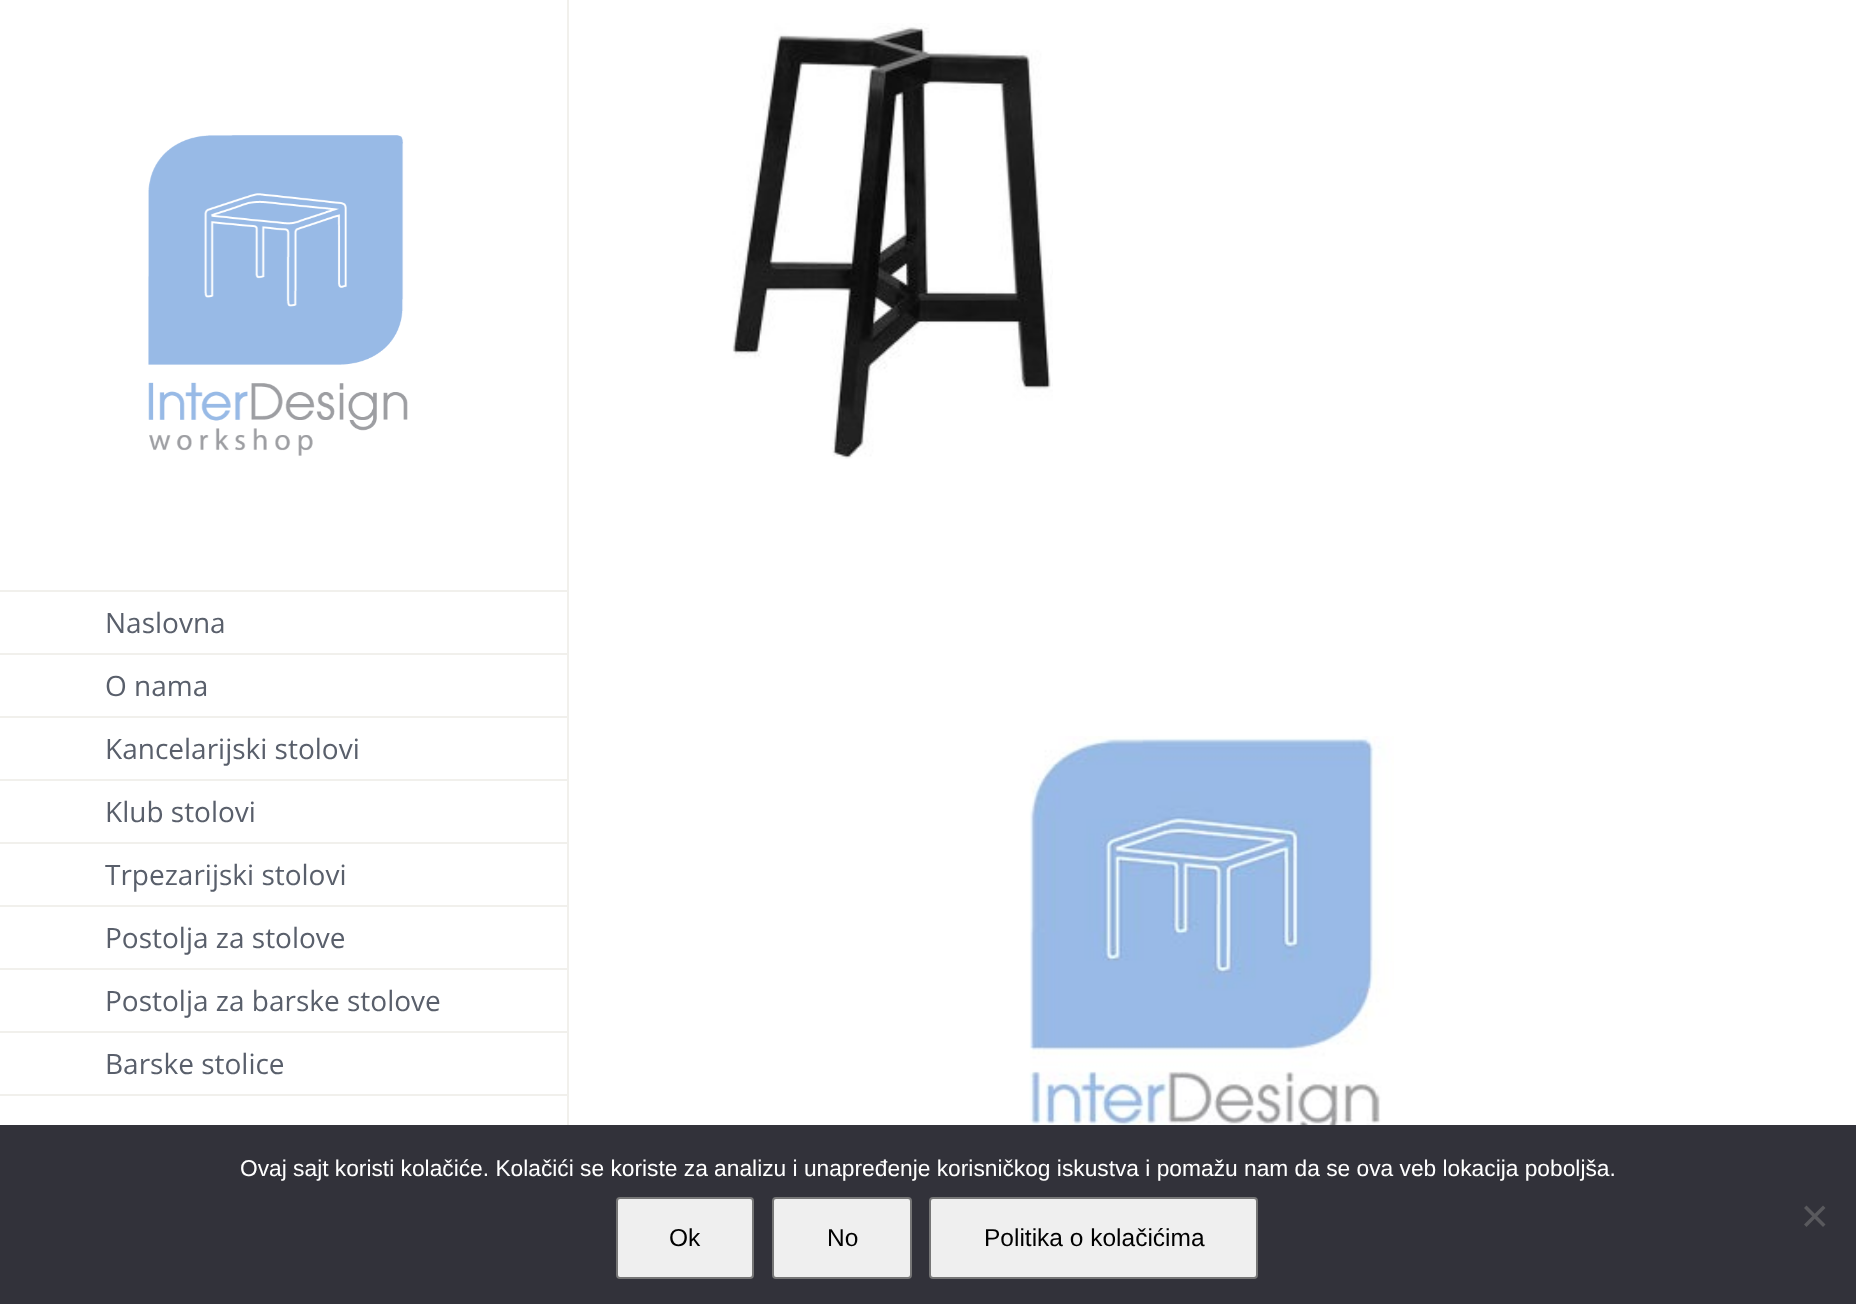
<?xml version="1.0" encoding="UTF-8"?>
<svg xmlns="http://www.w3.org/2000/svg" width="1856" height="1304">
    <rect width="100%" height="100%" fill="#FFFFFF"/>
    <image x="732" y="23" width="321" height="436" href="img_01.png"/>
    <image x="148" y="135" width="260" height="321" href="img_02.png"/>
    <rect x="567" y="0" width="2" height="1125" fill="#F1F0EC"/>
    <rect x="0" y="590" width="569" height="2" fill="#F1F0EC"/>
    <rect x="0" y="653" width="569" height="2" fill="#F1F0EC"/>
    <text x="105" y="633" font-family="Open Sans" font-size="28" fill="#595F6B">Naslovna</text>
    <rect x="0" y="716" width="569" height="2" fill="#F1F0EC"/>
    <text x="105" y="696" font-family="Open Sans" font-size="28" fill="#595F6B">O nama</text>
    <rect x="0" y="779" width="569" height="2" fill="#F1F0EC"/>
    <text x="105" y="759" font-family="Open Sans" font-size="28" fill="#595F6B">Kancelarijski stolovi</text>
    <rect x="0" y="842" width="569" height="2" fill="#F1F0EC"/>
    <text x="105" y="822" font-family="Open Sans" font-size="28" fill="#595F6B">Klub stolovi</text>
    <rect x="0" y="905" width="569" height="2" fill="#F1F0EC"/>
    <text x="105" y="885" font-family="Open Sans" font-size="28" fill="#595F6B">Trpezarijski stolovi</text>
    <rect x="0" y="968" width="569" height="2" fill="#F1F0EC"/>
    <text x="105" y="948" font-family="Open Sans" font-size="28" fill="#595F6B">Postolja za stolove</text>
    <rect x="0" y="1031" width="569" height="2" fill="#F1F0EC"/>
    <text x="105" y="1011" font-family="Open Sans" font-size="28" fill="#595F6B">Postolja za barske stolove</text>
    <rect x="0" y="1094" width="569" height="2" fill="#F1F0EC"/>
    <text x="105" y="1074" font-family="Open Sans" font-size="28" fill="#595F6B">Barske stolice</text>
    <image x="1029" y="736" width="365" height="389" href="img_03.png"/>
    <rect x="0" y="1125" width="1856" height="179" fill="#32323A"/>
    <text x="240" y="1176" font-family="Liberation Sans" font-size="22.75" fill="#FFFFFF">Ovaj sajt koristi kolačiće. Kolačići se koriste za analizu i unapređenje korisničkog iskustva i pomažu nam da se ova veb lokacija poboljša.</text>
    <path d="M 1823 1205.5 L 1825.5 1208 L 1806.5 1227 L 1804 1224.5 Z" fill="#59595D"/>
    <path d="M 1804 1208 L 1806.5 1205.5 L 1825.5 1224.5 L 1823 1227 Z" fill="#59595D"/>
    <rect x="617" y="1198" width="136" height="80" rx="3" fill="#EFEFEF" stroke="#767676" stroke-width="2"/>
    <text x="669" y="1246" font-family="Liberation Sans" font-size="24.5" fill="#000000">Ok</text>
    <rect x="773" y="1198" width="138" height="80" rx="3" fill="#EFEFEF" stroke="#767676" stroke-width="2"/>
    <text x="827" y="1246" font-family="Liberation Sans" font-size="24.5" fill="#000000">No</text>
    <rect x="930" y="1198" width="327" height="80" rx="3" fill="#EFEFEF" stroke="#767676" stroke-width="2"/>
    <text x="984" y="1246" font-family="Liberation Sans" font-size="24.5" fill="#000000">Politika o kolačićima</text>
</svg>
